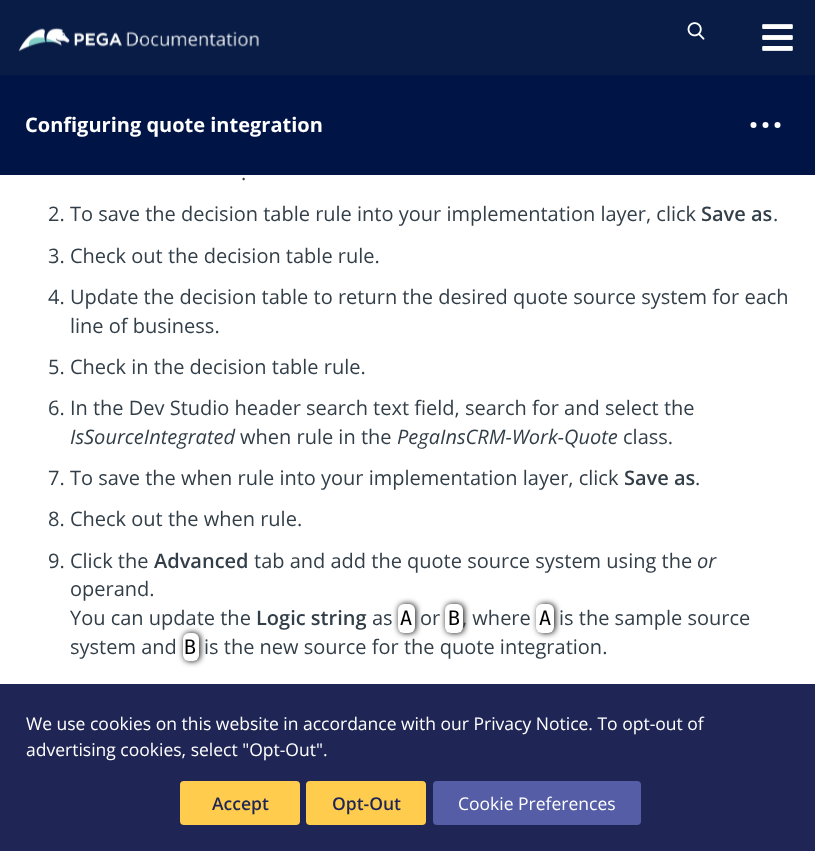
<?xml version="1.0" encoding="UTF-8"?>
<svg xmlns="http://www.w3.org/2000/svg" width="815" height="851">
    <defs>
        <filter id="blur1" x="-50%" y="-200%" width="200%" height="500%"><feGaussianBlur stdDeviation="3"/></filter>
    </defs>
    <rect width="100%" height="100%" fill="#FFFFFF"/>
    <rect x="0" y="0" width="815" height="75" fill="#081C45"/>
    <image x="18" y="27" width="241" height="25" href="img_01.png"/>
    <image x="687" y="22" width="18" height="18" href="img_02.png"/>
    <image x="762" y="24" width="31" height="27" href="img_03.png"/>
    <rect x="0" y="75" width="815" height="100" fill="#001446"/>
    <text x="25" y="132" font-family="Open Sans" font-size="20" font-weight="700" fill="#FFFFFF">Configuring quote integration</text>
    <circle cx="753.5" cy="125" r="3" fill="#FFFFFF"/>
    <circle cx="765.5" cy="125" r="3" fill="#FFFFFF"/>
    <circle cx="777.5" cy="125" r="3" fill="#FFFFFF"/>
    <text x="241" y="180" font-family="Open Sans" font-size="20" fill="#323E48">.</text>
    <text x="48" y="221" font-family="Open Sans" font-size="20" fill="#323E48">2. To save the decision table rule into your implementation layer, click</text>
    <text x="701" y="221" font-family="Open Sans" font-size="20" font-weight="600" fill="#323E48">Save as</text>
    <text x="773" y="221" font-family="Open Sans" font-size="20" fill="#323E48">.</text>
    <text x="48" y="263" font-family="Open Sans" font-size="20" fill="#323E48">3. Check out the decision table rule.</text>
    <text x="48" y="304" font-family="Open Sans" font-size="20" fill="#323E48">4. Update the decision table to return the desired quote source system for each</text>
    <text x="70" y="333" font-family="Open Sans" font-size="20" fill="#323E48">line of business.</text>
    <text x="48" y="374" font-family="Open Sans" font-size="20" fill="#323E48">5. Check in the decision table rule.</text>
    <text x="48" y="415" font-family="Open Sans" font-size="20" fill="#323E48">6. In the Dev Studio header search text field, search for and select the</text>
    <text x="70" y="444" font-family="Open Sans" font-size="20" font-style="italic" fill="#323E48">IsSourceIntegrated</text>
    <text x="240" y="444" font-family="Open Sans" font-size="20" fill="#323E48">when rule in the</text>
    <text x="397" y="444" font-family="Open Sans" font-size="20" font-style="italic" fill="#323E48">PegaInsCRM-Work-Quote</text>
    <text x="623" y="444" font-family="Open Sans" font-size="20" fill="#323E48">class.</text>
    <text x="48" y="485" font-family="Open Sans" font-size="20" fill="#323E48">7. To save the when rule into your implementation layer, click</text>
    <text x="624" y="485" font-family="Open Sans" font-size="20" font-weight="600" fill="#323E48">Save as</text>
    <text x="695" y="485" font-family="Open Sans" font-size="20" fill="#323E48">.</text>
    <text x="48" y="526" font-family="Open Sans" font-size="20" fill="#323E48">8. Check out the when rule.</text>
    <text x="48" y="568" font-family="Open Sans" font-size="20" fill="#323E48">9. Click the</text>
    <text x="154" y="568" font-family="Open Sans" font-size="20" font-weight="600" fill="#323E48">Advanced</text>
    <text x="254" y="568" font-family="Open Sans" font-size="20" fill="#323E48">tab and add the quote source system using the</text>
    <text x="697" y="568" font-family="Open Sans" font-size="20" font-style="italic" fill="#323E48">or</text>
    <text font-family="Open Sans" font-size="20" fill="#323E48">
        <tspan x="70" y="596">operand.</tspan>
        <tspan x="70" y="625">You can update the</tspan>
    </text>
    <text x="256" y="625" font-family="Open Sans" font-size="20" font-weight="600" fill="#323E48">Logic string</text>
    <text x="372" y="625" font-family="Open Sans" font-size="20" fill="#323E48">as</text>
    <rect x="399" y="604" width="17" height="29" rx="6" fill="#000000" filter="url(#blur1)"/>
    <rect x="398" y="604" width="17" height="29" rx="6" fill="#FFFFFF"/>
    <text x="400" y="625" font-family="DejaVu Sans Mono" font-size="20" fill="#000000">A</text>
    <text x="420" y="625" font-family="Open Sans" font-size="20" fill="#323E48">or</text>
    <rect x="446" y="604" width="18" height="29" rx="6" fill="#000000" filter="url(#blur1)"/>
    <rect x="445" y="604" width="18" height="29" rx="6" fill="#FFFFFF"/>
    <text x="448" y="625" font-family="DejaVu Sans Mono" font-size="20" fill="#000000">B</text>
    <text x="462" y="625" font-family="Open Sans" font-size="20" fill="#323E48">, where</text>
    <rect x="538" y="604" width="17" height="29" rx="6" fill="#000000" filter="url(#blur1)"/>
    <rect x="536" y="604" width="18" height="29" rx="6" fill="#FFFFFF"/>
    <text x="539" y="625" font-family="DejaVu Sans Mono" font-size="20" fill="#000000">A</text>
    <text x="559" y="625" font-family="Open Sans" font-size="20" fill="#323E48">is the sample source</text>
    <text x="70" y="654" font-family="Open Sans" font-size="20" fill="#323E48">system and</text>
    <rect x="184" y="633" width="16" height="28" rx="6" fill="#000000" filter="url(#blur1)"/>
    <rect x="183" y="633" width="16" height="28" rx="6" fill="#FFFFFF"/>
    <text x="184" y="654" font-family="DejaVu Sans Mono" font-size="20" fill="#000000">B</text>
    <text x="204" y="654" font-family="Open Sans" font-size="20" fill="#323E48">is the new source for the quote integration.</text>
    <rect x="0" y="684" width="815" height="167" fill="#1F2656"/>
    <text font-family="Open Sans" font-size="17.5" fill="#FFFFFF">
        <tspan x="26" y="730">We use cookies on this website in accordance with our Privacy Notice. To opt-out of</tspan>
        <tspan x="26" y="756">advertising cookies, select "Opt-Out".</tspan>
    </text>
    <rect x="180" y="781" width="120" height="44" rx="4" fill="#FFCC4D"/>
    <text x="212" y="810" font-family="Open Sans" font-size="17.5" font-weight="600" fill="#1F2656">Accept</text>
    <rect x="306" y="781" width="120" height="44" rx="4" fill="#FFCC4D"/>
    <text x="332" y="810" font-family="Open Sans" font-size="17.5" font-weight="600" fill="#1F2656">Opt-Out</text>
    <rect x="433" y="781" width="208" height="44" rx="4" fill="#545DA6"/>
    <text x="458" y="810" font-family="Open Sans" font-size="17.5" fill="#FFFFFF">Cookie Preferences</text>
</svg>
